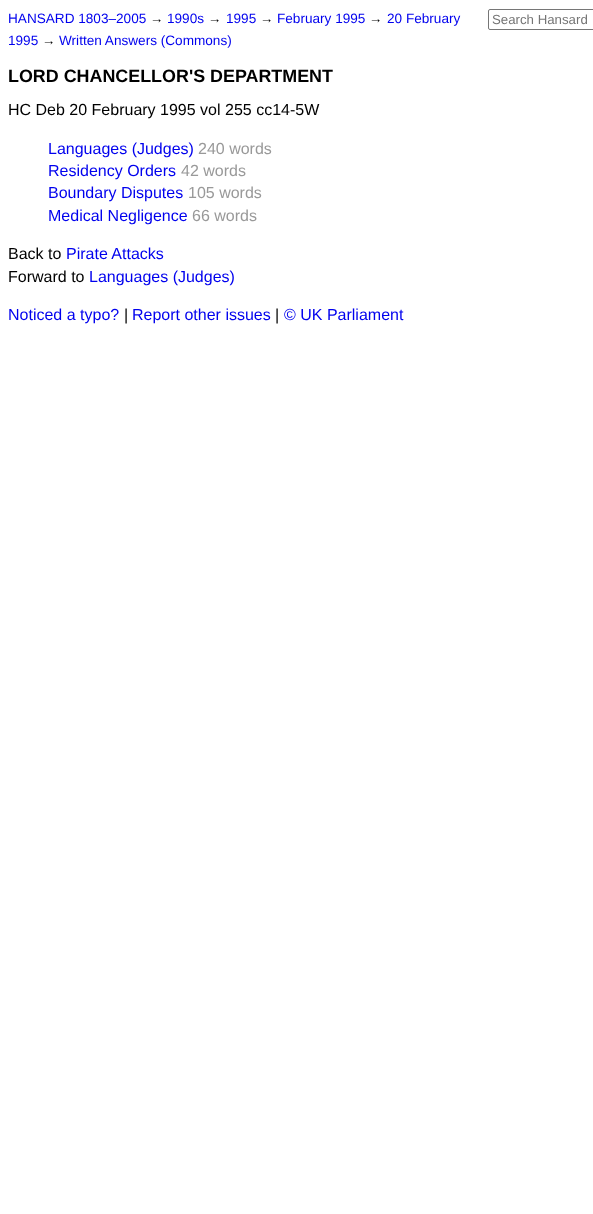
<?xml version="1.0" encoding="UTF-8"?>
<svg xmlns="http://www.w3.org/2000/svg" width="593" height="1214">
    <rect width="100%" height="100%" fill="#FFFFFF"/>
    <text x="8" y="23" font-family="Liberation Sans" font-size="13.6" fill="#0000EE">HANSARD 1803–2005</text>
    <text x="150" y="23" font-family="Liberation Sans" font-size="13.6" fill="#000000">→</text>
    <text x="167" y="23" font-family="Liberation Sans" font-size="13.6" fill="#0000EE">1990s</text>
    <text x="208" y="23" font-family="Liberation Sans" font-size="13.6" fill="#000000">→</text>
    <text x="226" y="23" font-family="Liberation Sans" font-size="13.6" fill="#0000EE">1995</text>
    <text x="260" y="23" font-family="Liberation Sans" font-size="13.6" fill="#000000">→</text>
    <text x="277" y="23" font-family="Liberation Sans" font-size="13.6" fill="#0000EE">February 1995</text>
    <text x="369" y="23" font-family="Liberation Sans" font-size="13.6" fill="#000000">→</text>
    <text x="387" y="23" font-family="Liberation Sans" font-size="13.6" fill="#0000EE">20 February</text>
    <text x="8" y="45" font-family="Liberation Sans" font-size="13.6" fill="#0000EE">1995</text>
    <text x="42" y="45" font-family="Liberation Sans" font-size="13.6" fill="#000000">→</text>
    <text x="59" y="45" font-family="Liberation Sans" font-size="13.6" fill="#0000EE">Written Answers (Commons)</text>
    <rect x="488.5" y="9.5" width="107" height="20" rx="1.5" fill="none" stroke="#767676"/>
    <text x="492" y="24" font-family="Liberation Sans" font-size="13.25" fill="#757575">Search Hansard</text>
    <text x="8" y="82" font-family="Liberation Sans" font-size="17.9" font-weight="700" fill="#000000">LORD CHANCELLOR'S DEPARTMENT</text>
    <text x="8" y="115" font-family="Liberation Sans" font-size="16" fill="#000000">HC Deb 20 February 1995 vol 255 cc14-5W</text>
    <text x="48" y="154" font-family="Liberation Sans" font-size="16" fill="#0000EE">Languages (Judges)</text>
    <text x="198" y="154" font-family="Liberation Sans" font-size="16" fill="#999999">240 words</text>
    <text x="48" y="176" font-family="Liberation Sans" font-size="16" fill="#0000EE">Residency Orders</text>
    <text x="181" y="176" font-family="Liberation Sans" font-size="16" fill="#999999">42 words</text>
    <text x="48" y="198" font-family="Liberation Sans" font-size="16" fill="#0000EE">Boundary Disputes</text>
    <text x="188" y="198" font-family="Liberation Sans" font-size="16" fill="#999999">105 words</text>
    <text x="48" y="221" font-family="Liberation Sans" font-size="16" fill="#0000EE">Medical Negligence</text>
    <text x="192" y="221" font-family="Liberation Sans" font-size="16" fill="#999999">66 words</text>
    <text x="8" y="259" font-family="Liberation Sans" font-size="16" fill="#000000">Back to</text>
    <text x="66" y="259" font-family="Liberation Sans" font-size="16" fill="#0000EE">Pirate Attacks</text>
    <text x="8" y="282" font-family="Liberation Sans" font-size="16" fill="#000000">Forward to</text>
    <text x="89" y="282" font-family="Liberation Sans" font-size="16" fill="#0000EE">Languages (Judges)</text>
    <text x="8" y="320" font-family="Liberation Sans" font-size="16" fill="#0000EE">Noticed a typo?</text>
    <text x="124" y="320" font-family="Liberation Sans" font-size="16" fill="#000000">|</text>
    <text x="132" y="320" font-family="Liberation Sans" font-size="16" fill="#0000EE">Report other issues</text>
    <text x="275" y="320" font-family="Liberation Sans" font-size="16" fill="#000000">|</text>
    <text x="284" y="320" font-family="Liberation Sans" font-size="16" fill="#0000EE">© UK Parliament</text>
</svg>
